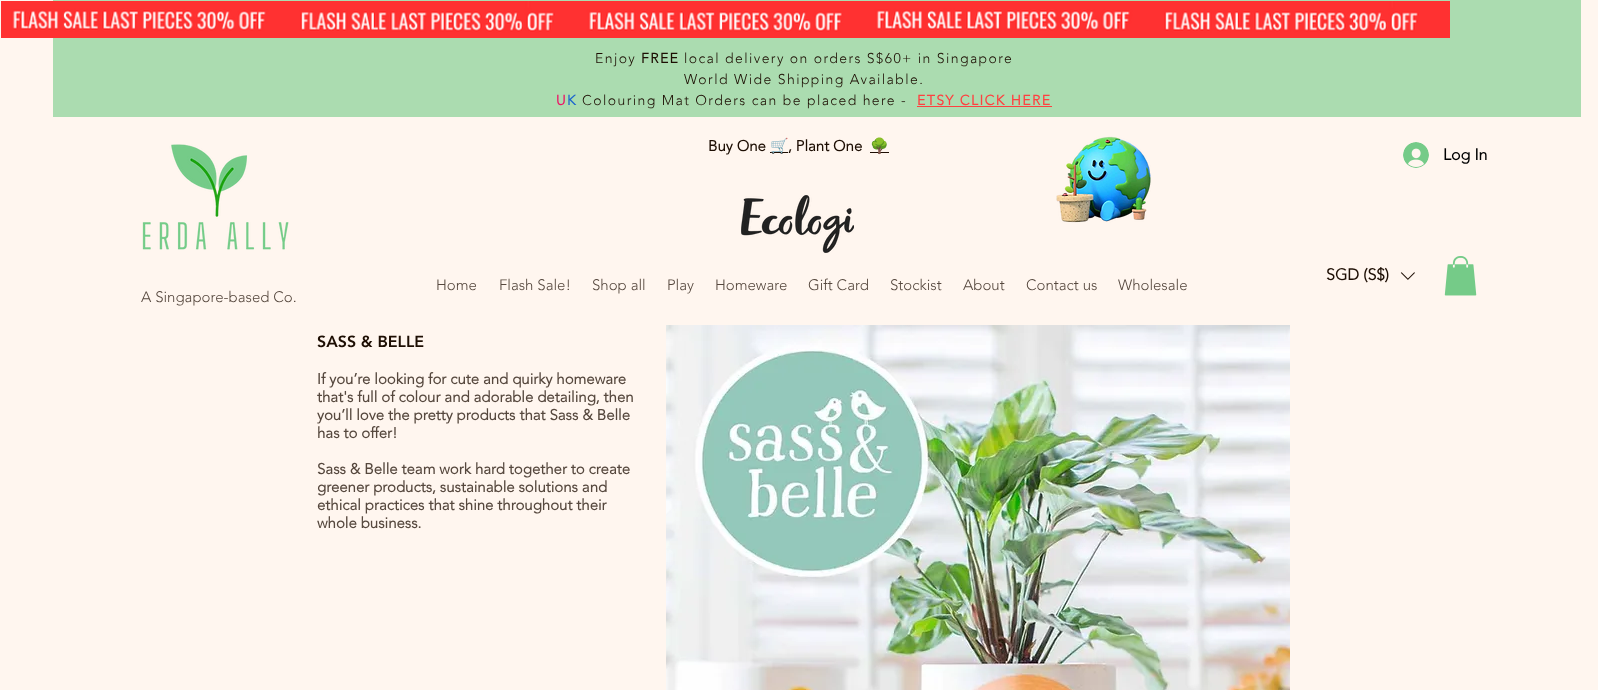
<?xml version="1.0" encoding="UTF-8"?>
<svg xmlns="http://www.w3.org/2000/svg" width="1598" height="690">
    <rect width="100%" height="100%" fill="#FFF6EF"/>
    <rect x="53" y="0" width="1528" height="117" fill="#ABDCB0"/>
    <image x="1" y="1" width="865" height="37" href="img_01.png"/>
    <image x="866" y="1" width="584" height="37" href="img_02.png"/>
    <text x="595" y="63" font-family="'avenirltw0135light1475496'" font-size="14" font-weight="300" letter-spacing="1.4" fill="#1D0E03">Enjoy</text>
    <text x="641" y="63" font-family="'avenirltw0135light1475496'" font-size="14" font-weight="700" letter-spacing="1.4" fill="#1D0E03">FREE</text>
    <text font-family="'avenirltw0135light1475496'" font-size="14" font-weight="300" letter-spacing="1.4" fill="#1D0E03">
        <tspan x="684" y="63">local delivery on orders S$60+ in Singapore</tspan>
        <tspan x="684" y="84">World Wide Shipping Available.</tspan>
    </text>
    <text x="556" y="105" font-family="'avenirltw0135light1475496'" font-size="14" font-weight="700" letter-spacing="1.4" fill="#ED1566">U</text>
    <text x="567" y="105" font-family="'avenirltw0135light1475496'" font-size="14" font-weight="700" letter-spacing="1.4" fill="#1D67CD">K</text>
    <text x="582" y="105" font-family="'avenirltw0135light1475496'" font-size="14" font-weight="300" letter-spacing="1.4" fill="#1D0E03">Colouring Mat Orders can be placed here -</text>
    <text x="917" y="105" font-family="'avenirltw0135light1475496'" font-size="14" font-weight="700" letter-spacing="1.4" fill="#FF4040">ETSY CLICK HERE</text>
    <rect x="917" y="106" width="135" height="1" fill="#FF4040"/>
    <image x="142" y="144" width="147" height="106" href="img_03.png"/>
    <text x="708" y="151" font-family="'avenirltw0135light1475496'" font-size="15" font-weight="700" fill="#1D0E03">Buy One</text>
    <rect x="770" y="152" width="18" height="1" fill="#1D0E03"/>
    <text x="770" y="151" font-family="Noto Color Emoji" font-size="15" font-weight="700" fill="#1D0E03">🛒</text>
    <text x="788" y="151" font-family="'avenirltw0135light1475496'" font-size="15" font-weight="700" fill="#1D0E03">, Plant One</text>
    <rect x="870" y="152" width="19" height="1" fill="#1D0E03"/>
    <text x="870" y="151" font-family="Noto Color Emoji" font-size="15" font-weight="700" fill="#1D0E03">🌳</text>
    <image x="1056" y="136" width="95" height="87" href="img_04.png"/>
    <image x="1403" y="142" width="26" height="26" href="img_05.png"/>
    <text x="1443" y="160" font-family="'avenirltw0135light1475496'" font-size="16" font-weight="700" fill="#000000">Log In</text>
    <image x="741" y="195" width="113" height="58" href="img_06.png"/>
    <text x="1326" y="280" font-family="'avenirltw0135light1475496'" font-size="16" font-weight="700" fill="#1D0E03">SGD (S$)</text>
    <image x="1400" y="272" width="15" height="8" href="img_07.png"/>
    <image x="1444" y="256" width="33" height="40" href="img_08.png"/>
    <text x="436" y="290" font-family="'avenirltw0135light1475496'" font-size="15" font-weight="300" fill="#56483E">Home</text>
    <text x="499" y="290" font-family="'avenirltw0135light1475496'" font-size="15" font-weight="300" fill="#56483E">Flash Sale!</text>
    <text x="592" y="290" font-family="'avenirltw0135light1475496'" font-size="15" font-weight="300" fill="#56483E">Shop all</text>
    <text x="667" y="290" font-family="'avenirltw0135light1475496'" font-size="15" font-weight="300" fill="#56483E">Play</text>
    <text x="715" y="290" font-family="'avenirltw0135light1475496'" font-size="15" font-weight="300" fill="#56483E">Homeware</text>
    <text x="808" y="290" font-family="'avenirltw0135light1475496'" font-size="15" font-weight="300" fill="#56483E">Gift Card</text>
    <text x="890" y="290" font-family="'avenirltw0135light1475496'" font-size="15" font-weight="300" fill="#56483E">Stockist</text>
    <text x="963" y="290" font-family="'avenirltw0135light1475496'" font-size="15" font-weight="300" fill="#56483E">About</text>
    <text x="1026" y="290" font-family="'avenirltw0135light1475496'" font-size="15" font-weight="300" fill="#56483E">Contact us</text>
    <text x="1118" y="290" font-family="'avenirltw0135light1475496'" font-size="15" font-weight="300" fill="#56483E">Wholesale</text>
    <text x="141" y="302" font-family="'avenirltw0135light1475496'" font-size="15" font-weight="300" fill="#56483E">A Singapore-based Co.</text>
    <text x="317" y="347" font-family="'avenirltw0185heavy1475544'" font-size="16" font-weight="900" fill="#1D0E03">SASS &amp; BELLE</text>
    <text font-family="'avenirltw0135light1475496'" font-size="15" font-weight="700" fill="#56483E">
        <tspan x="317" y="384">If you’re looking for cute and quirky homeware</tspan>
        <tspan x="317" y="402">that's full of colour and adorable detailing, then</tspan>
        <tspan x="317" y="420">you’ll love the pretty products that Sass &amp; Belle</tspan>
        <tspan x="317" y="438">has to offer!</tspan>
    </text>
    <text font-family="'avenirltw0135light1475496'" font-size="15" font-weight="700" fill="#56483E">
        <tspan x="317" y="474">Sass &amp; Belle team work hard together to create</tspan>
        <tspan x="317" y="492">greener products, sustainable solutions and</tspan>
        <tspan x="317" y="510">ethical practices that shine throughout their</tspan>
        <tspan x="317" y="528">whole business.</tspan>
    </text>
    <image x="666" y="325" width="624" height="365" href="img_09.png"/>
</svg>
